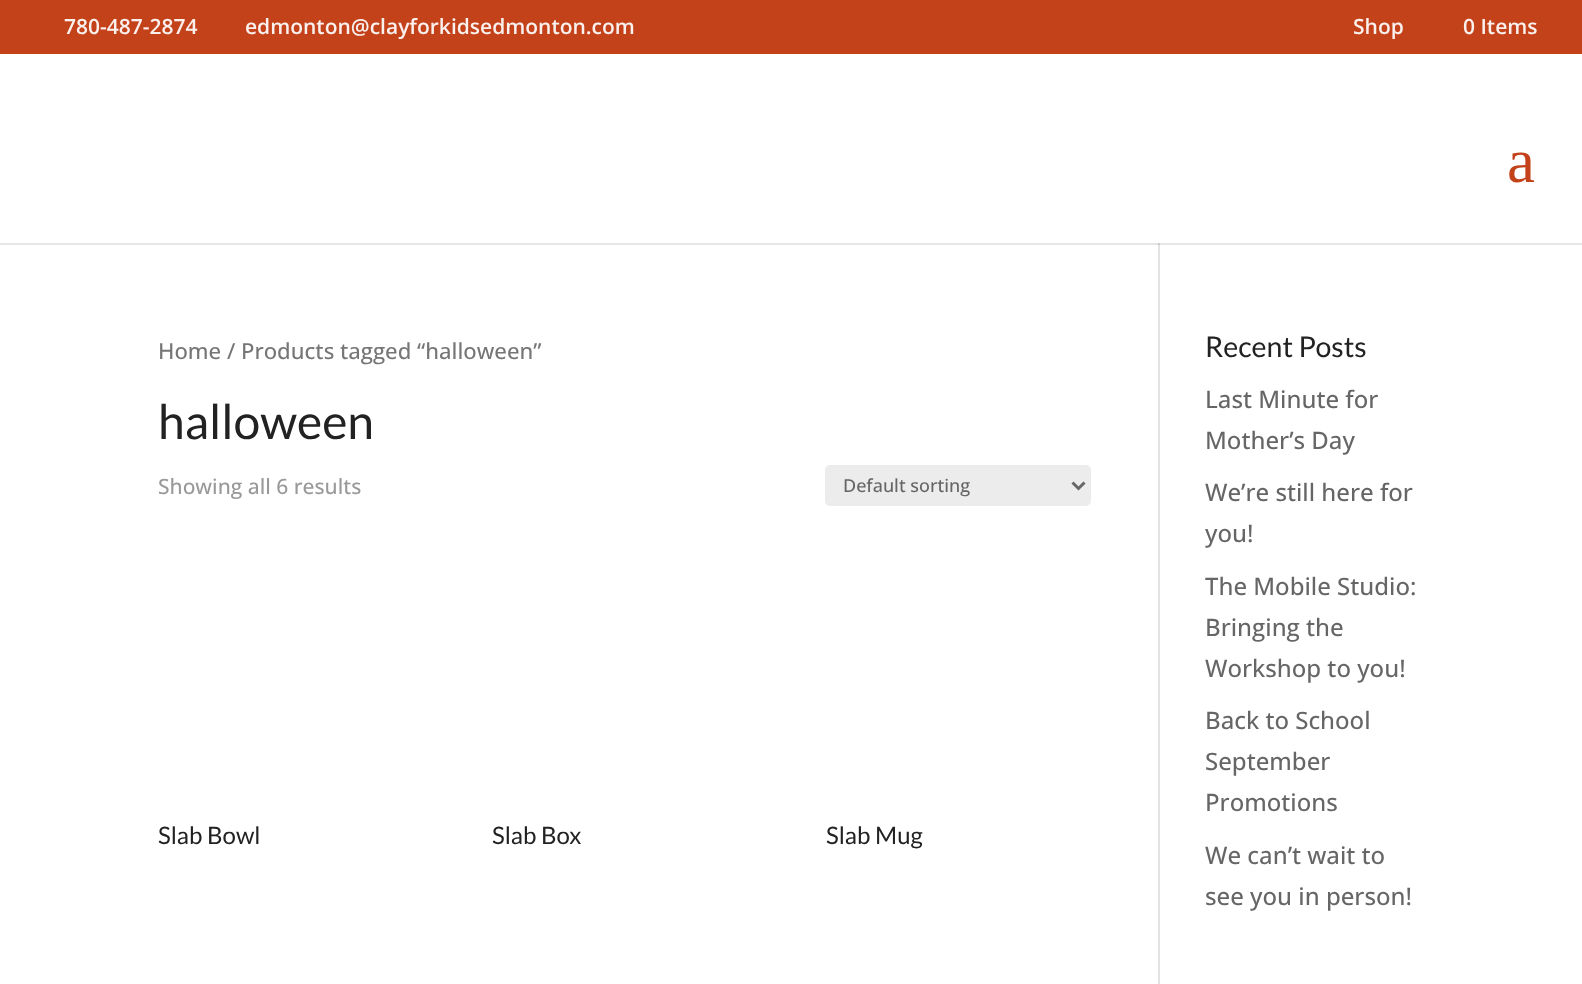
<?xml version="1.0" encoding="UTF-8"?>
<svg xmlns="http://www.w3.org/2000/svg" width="1582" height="984">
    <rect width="100%" height="100%" fill="#FFFFFF"/>
    <rect x="0" y="0" width="1582" height="54" fill="#C4421A"/>
    <text x="64" y="34" font-family="Open Sans" font-size="21" font-weight="600" fill="#FAF0ED">780-487-2874</text>
    <text x="245" y="34" font-family="Open Sans" font-size="21" font-weight="600" fill="#FAF0ED">edmonton@clayforkidsedmonton.com</text>
    <text x="1353" y="34" font-family="Open Sans" font-size="21" font-weight="600" fill="#FAF0ED">Shop</text>
    <text x="1463" y="34" font-family="Open Sans" font-size="21" font-weight="600" fill="#FAF0ED">0 Items</text>
    <rect x="1158" y="243" width="2" height="741" fill="#E2E2E2"/>
    <path d="M 0 243 V 245 H 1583 V 56 H 1582 V 243 Z" fill="#000000" fill-opacity="0.1"/>
    <text x="1507" y="182" font-family="Liberation Serif" font-size="63" fill="#C4421A">a</text>
    <text x="158" y="359" font-family="Open Sans" font-size="22.1" font-weight="500" fill="#767676">Home / Products tagged “halloween”</text>
    <text x="158" y="439" font-family="Lato" font-size="48" fill="#222222">halloween</text>
    <text x="158" y="494" font-family="Open Sans" font-size="21" font-weight="500" fill="#999999">Showing all 6 results</text>
    <rect x="825" y="465" width="266" height="41" rx="5" fill="#ECECEC"/>
    <path d="M 1072.5 482.5 L 1078.5 488.5 L 1084.5 482.5" fill="none" stroke="#666666" stroke-width="3"/>
    <text x="843" y="492" font-family="Open Sans" font-size="18" font-weight="500" fill="#666666">Default sorting</text>
    <text x="158" y="844" font-family="Lato" font-size="24" fill="#222222">Slab Bowl</text>
    <text x="492" y="844" font-family="Lato" font-size="24" fill="#222222">Slab Box</text>
    <text x="826" y="844" font-family="Lato" font-size="24" fill="#222222">Slab Mug</text>
    <text x="1205" y="357" font-family="Lato" font-size="28.5" fill="#222222">Recent Posts</text>
    <text font-family="Open Sans" font-size="24" font-weight="500" fill="#666666">
        <tspan x="1205" y="408">Last Minute for</tspan>
        <tspan x="1205" y="449">Mother’s Day</tspan>
    </text>
    <text font-family="Open Sans" font-size="24" font-weight="500" fill="#666666">
        <tspan x="1205" y="501">We’re still here for</tspan>
        <tspan x="1205" y="542">you!</tspan>
    </text>
    <text font-family="Open Sans" font-size="24" font-weight="500" fill="#666666">
        <tspan x="1205" y="595">The Mobile Studio:</tspan>
        <tspan x="1205" y="636">Bringing the</tspan>
        <tspan x="1205" y="677">Workshop to you!</tspan>
    </text>
    <text font-family="Open Sans" font-size="24" font-weight="500" fill="#666666">
        <tspan x="1205" y="729">Back to School</tspan>
        <tspan x="1205" y="770">September</tspan>
        <tspan x="1205" y="811">Promotions</tspan>
    </text>
    <text font-family="Open Sans" font-size="24" font-weight="500" fill="#666666">
        <tspan x="1205" y="864">We can’t wait to</tspan>
        <tspan x="1205" y="905">see you in person!</tspan>
    </text>
</svg>
